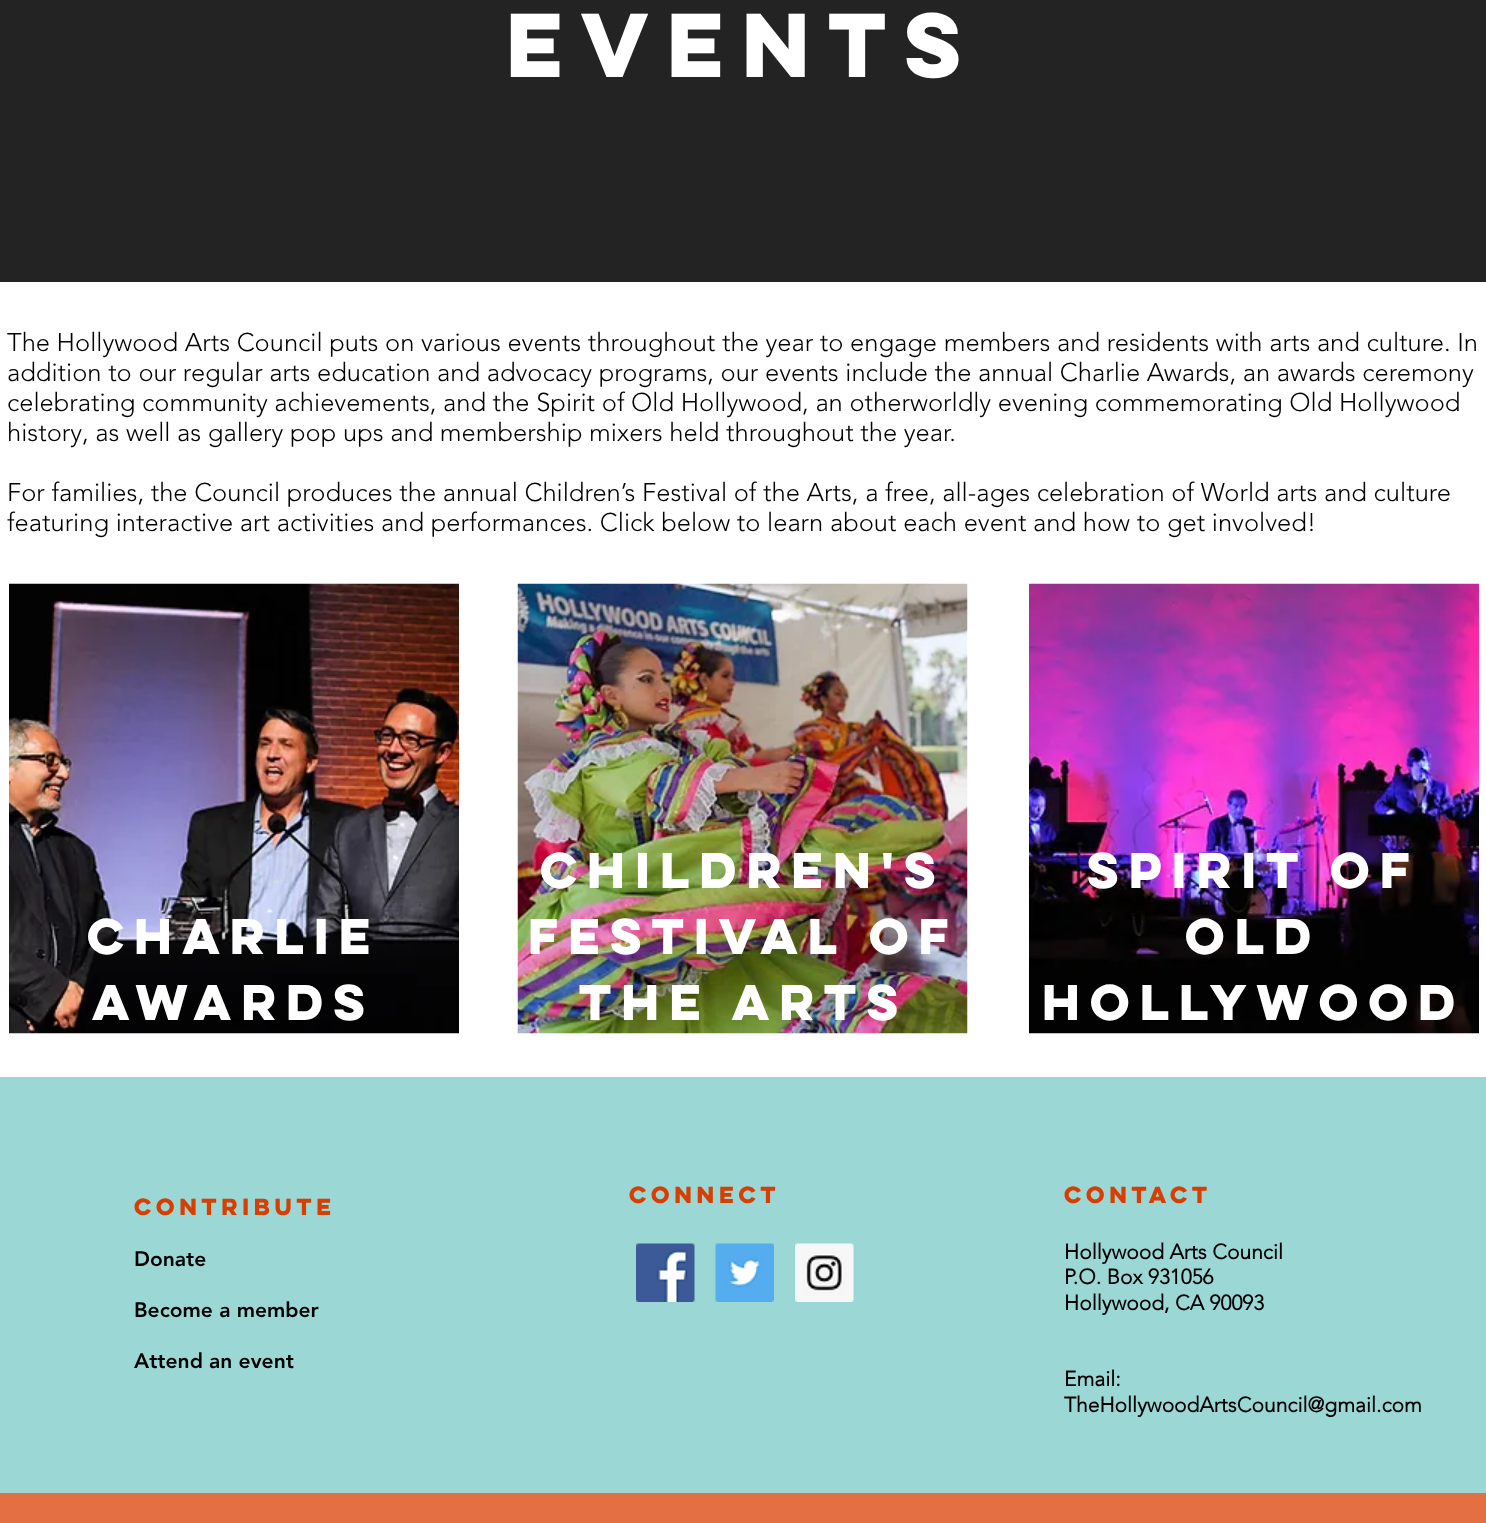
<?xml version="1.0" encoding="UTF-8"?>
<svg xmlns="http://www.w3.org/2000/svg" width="1486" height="1523">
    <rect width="100%" height="100%" fill="#FFFFFF"/>
    <rect x="0" y="0" width="1486" height="282" fill="#242323"/>
    <text x="506" y="77" font-family="'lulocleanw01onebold'" font-size="81" font-weight="700" fill="#FFFFFF">EVENTS</text>
    <text font-family="'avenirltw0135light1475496'" font-size="25.5" font-weight="300" fill="#000000">
        <tspan x="7" y="351">The Hollywood Arts Council puts on various events throughout the year to engage members and residents with arts and culture. In</tspan>
        <tspan x="7" y="381">addition to our regular arts education and advocacy programs, our events include the annual Charlie Awards, an awards ceremony</tspan>
        <tspan x="7" y="411">celebrating community achievements, and the Spirit of Old Hollywood, an otherworldly evening commemorating Old Hollywood</tspan>
        <tspan x="7" y="441">history, as well as gallery pop ups and membership mixers held throughout the year.</tspan>
    </text>
    <text font-family="'avenirltw0135light1475496'" font-size="25.5" font-weight="300" fill="#000000">
        <tspan x="7" y="501">For families, the Council produces the annual Children’s Festival of the Arts, a free, all-ages celebration of World arts and culture</tspan>
        <tspan x="7" y="531">featuring interactive art activities and performances. Click below to learn about each event and how to get involved!</tspan>
    </text>
    <image x="9" y="583" width="450" height="451" href="img_01.png"/>
    <image x="517" y="583" width="451" height="451" href="img_02.png"/>
    <image x="1029" y="583" width="450" height="451" href="img_03.png"/>
    <text x="87" y="954" font-family="'lulocleanw01onebold'" font-size="45" font-weight="700" fill="#FFFFFF">charlie</text>
    <text x="92" y="1020" font-family="'lulocleanw01onebold'" font-size="45" font-weight="700" fill="#FFFFFF">Awards</text>
    <text x="540" y="888" font-family="'lulocleanw01onebold'" font-size="45" font-weight="700" fill="#FFFFFF">children's</text>
    <text x="528" y="954" font-family="'lulocleanw01onebold'" font-size="45" font-weight="700" fill="#FFFFFF">festival of</text>
    <text x="579" y="1020" font-family="'lulocleanw01onebold'" font-size="45" font-weight="700" fill="#FFFFFF">the arts</text>
    <text x="1087" y="888" font-family="'lulocleanw01onebold'" font-size="45" font-weight="700" fill="#FFFFFF">Spirit of</text>
    <text x="1185" y="954" font-family="'lulocleanw01onebold'" font-size="45" font-weight="700" fill="#FFFFFF">old</text>
    <text x="1042" y="1020" font-family="'lulocleanw01onebold'" font-size="45" font-weight="700" fill="#FFFFFF">hollywood</text>
    <rect x="0" y="1077" width="1486" height="416" fill="#9BD7D5"/>
    <text x="134" y="1215" font-family="'lulocleanw01onebold'" font-size="21" font-weight="700" fill="#D93D00">Contribute</text>
    <text x="134" y="1266" font-family="'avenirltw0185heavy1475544'" font-size="21" font-weight="900" fill="#000000">Donate</text>
    <text x="134" y="1317" font-family="'avenirltw0185heavy1475544'" font-size="21" font-weight="900" fill="#000000">Become a member</text>
    <text x="134" y="1368" font-family="'avenirltw0185heavy1475544'" font-size="21" font-weight="900" fill="#000000">Attend an event</text>
    <text x="629" y="1203" font-family="'lulocleanw01onebold'" font-size="21" font-weight="700" fill="#D93D00">Connect</text>
    <text x="1064" y="1203" font-family="'lulocleanw01onebold'" font-size="21" font-weight="700" fill="#D93D00">Contact</text>
    <text font-family="'avenirltw0135light1475496'" font-size="21" font-weight="700" fill="#000000">
        <tspan x="1064" y="1259">Hollywood Arts Council</tspan>
        <tspan x="1064" y="1284">P.O. Box 931056</tspan>
        <tspan x="1064" y="1310">Hollywood, CA 90093</tspan>
    </text>
    <text font-family="'avenirltw0135light1475496'" font-size="21" font-weight="700" fill="#000000">
        <tspan x="1064" y="1386">Email:</tspan>
        <tspan x="1064" y="1412">TheHollywoodArtsCouncil@gmail.com</tspan>
    </text>
    <image x="636" y="1243" width="59" height="59" href="img_04.png"/>
    <image x="715" y="1243" width="59" height="59" href="img_05.png"/>
    <image x="795" y="1243" width="59" height="59" href="img_06.png"/>
    <rect x="0" y="1493" width="1486" height="30" fill="#E36F42"/>
</svg>
